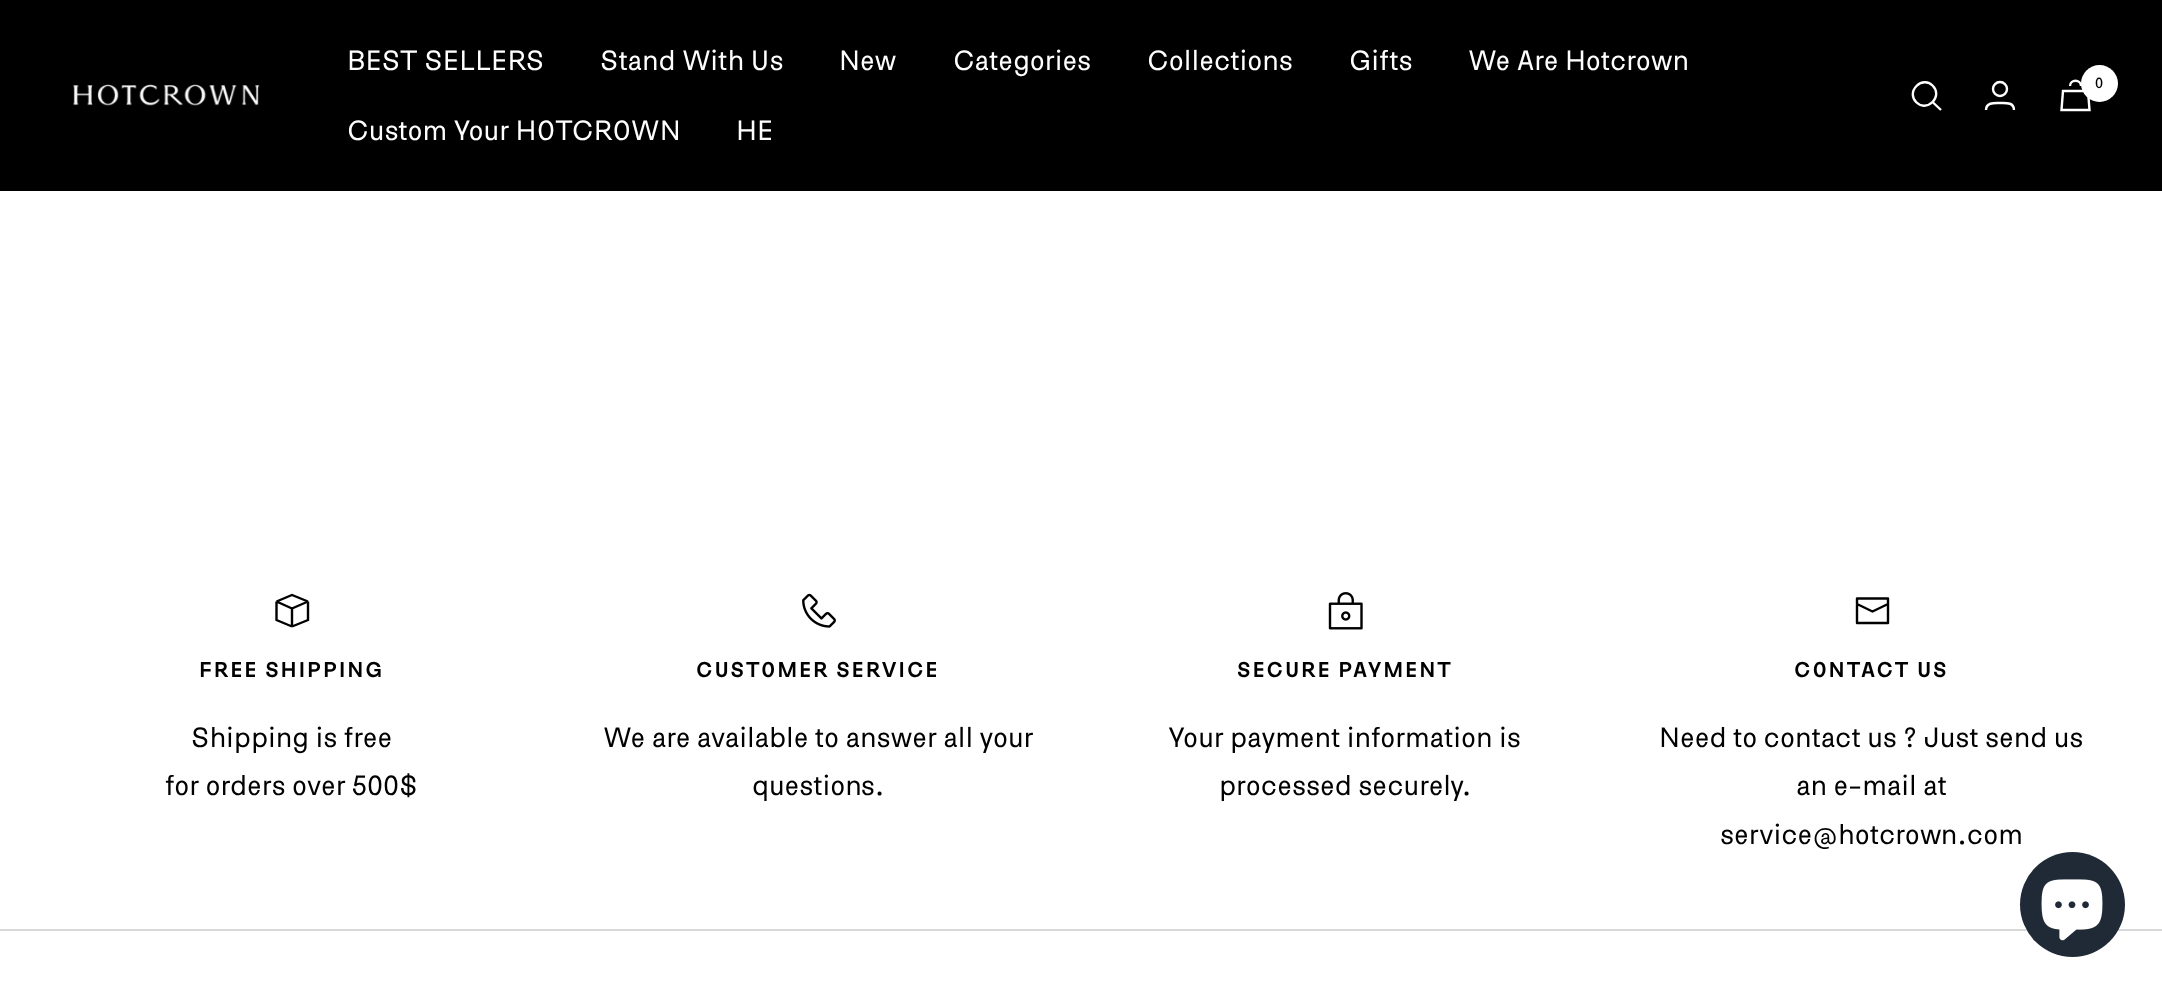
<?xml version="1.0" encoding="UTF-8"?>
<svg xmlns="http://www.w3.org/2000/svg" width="2162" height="994">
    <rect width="100%" height="100%" fill="#FFFFFF"/>
    <rect x="0" y="0" width="2162" height="191" fill="#000000"/>
    <image x="73" y="84" width="187" height="22" href="img_01.png"/>
    <text x="347" y="70" font-family="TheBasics" font-size="28" fill="#FFFFFF">BEST SELLERS</text>
    <text x="600" y="70" font-family="TheBasics" font-size="28" fill="#FFFFFF">Stand With Us</text>
    <text x="839" y="70" font-family="TheBasics" font-size="28" fill="#FFFFFF">New</text>
    <text x="953" y="70" font-family="TheBasics" font-size="28" fill="#FFFFFF">Categories</text>
    <text x="1147" y="70" font-family="TheBasics" font-size="28" fill="#FFFFFF">Collections</text>
    <text x="1349" y="70" font-family="TheBasics" font-size="28" fill="#FFFFFF">Gifts</text>
    <text x="1468" y="70" font-family="TheBasics" font-size="28" fill="#FFFFFF">We Are Hotcrown</text>
    <text x="347" y="140" font-family="TheBasics" font-size="28" fill="#FFFFFF">Custom Your HOTCROWN</text>
    <text x="736" y="140" font-family="TheBasics" font-size="28" fill="#FFFFFF">HE</text>
    <path d="M 1932.5 102 C 1943.5 91 1927.5 75 1916.5 86 C 1905.5 97 1921.5 113 1932.5 102 Z M 1932.5 102 L 1941 110" fill="none" stroke="#FFFFFF" stroke-width="2.4"/>
    <circle cx="2000" cy="89" r="7" fill="none" stroke="#FFFFFF" stroke-width="2.4"/>
    <path d="M 1986 110 C 1986 102 1995 103 2000 103 C 2005.5 103 2014 102 2014 110" fill="none" stroke="#FFFFFF" stroke-width="2.4"/>
    <path d="M 2063 91 H 2088 L 2089.5 110 H 2061.5 Z M 2081 86 C 2081 79 2070 79 2070 86" fill="none" stroke="#FFFFFF" stroke-width="2.4"/>
    <circle cx="2099.5" cy="83.5" r="18.5" fill="#FFFFFF"/>
    <text x="2095" y="88" font-family="Assistant" font-size="16" font-weight="600" fill="#000000">0</text>
    <path d="M 292 626.5 L 308 620 V 601.5 M 292 626.5 L 276.5 620 V 601.5 M 292 626.5 V 608.5 M 308 601.5 L 292 595 L 276.5 601.5 M 308 601.5 L 292 608.5 M 276.5 601.5 L 292 608.5" fill="none" stroke="#000000" stroke-width="2.4"/>
    <text x="199" y="677" font-family="TheBasics" font-size="21" font-weight="700" letter-spacing="1.75" fill="#000000">FREE SHIPPING</text>
    <text x="191" y="747" font-family="TheBasics" font-size="28" fill="#000000">Shipping is free</text>
    <text x="165" y="795" font-family="TheBasics" font-size="28" fill="#000000">for orders over 500$</text>
    <image x="802" y="593" width="34" height="35" href="img_02.png"/>
    <text x="696" y="677" font-family="TheBasics" font-size="21" font-weight="700" letter-spacing="1.75" fill="#000000">CUSTOMER SERVICE</text>
    <text x="603" y="747" font-family="TheBasics" font-size="28" fill="#000000">We are available to answer all your</text>
    <text x="752" y="795" font-family="TheBasics" font-size="28" fill="#000000">questions.</text>
    <image x="1328" y="592" width="35" height="38" href="img_03.png"/>
    <text x="1237" y="677" font-family="TheBasics" font-size="21" font-weight="700" letter-spacing="1.75" fill="#000000">SECURE PAYMENT</text>
    <text x="1168" y="747" font-family="TheBasics" font-size="28" fill="#000000">Your payment information is</text>
    <text x="1219" y="795" font-family="TheBasics" font-size="28" fill="#000000">processed securely.</text>
    <path d="M 1888 604 V 598.5 H 1857 V 604 M 1888 604 V 623 H 1857 V 604 M 1888 604 L 1872.5 611.5 L 1857 604" fill="none" stroke="#000000" stroke-width="2.4" stroke-linecap="round" stroke-linejoin="round"/>
    <text x="1794" y="677" font-family="TheBasics" font-size="21" font-weight="700" letter-spacing="1.75" fill="#000000">CONTACT US</text>
    <text x="1659" y="747" font-family="TheBasics" font-size="28" fill="#000000">Need to contact us ? Just send us</text>
    <text x="1796" y="795" font-family="TheBasics" font-size="28" fill="#000000">an e-mail at</text>
    <text x="1720" y="844" font-family="TheBasics" font-size="28" fill="#000000">service@hotcrown.com</text>
    <rect x="0" y="929" width="2162" height="2" fill="#D9D9D9"/>
    <circle cx="2072.5" cy="904.5" r="52.5" fill="#202A36"/>
    <image x="2041" y="879" width="62" height="62" href="img_04.png"/>
</svg>
